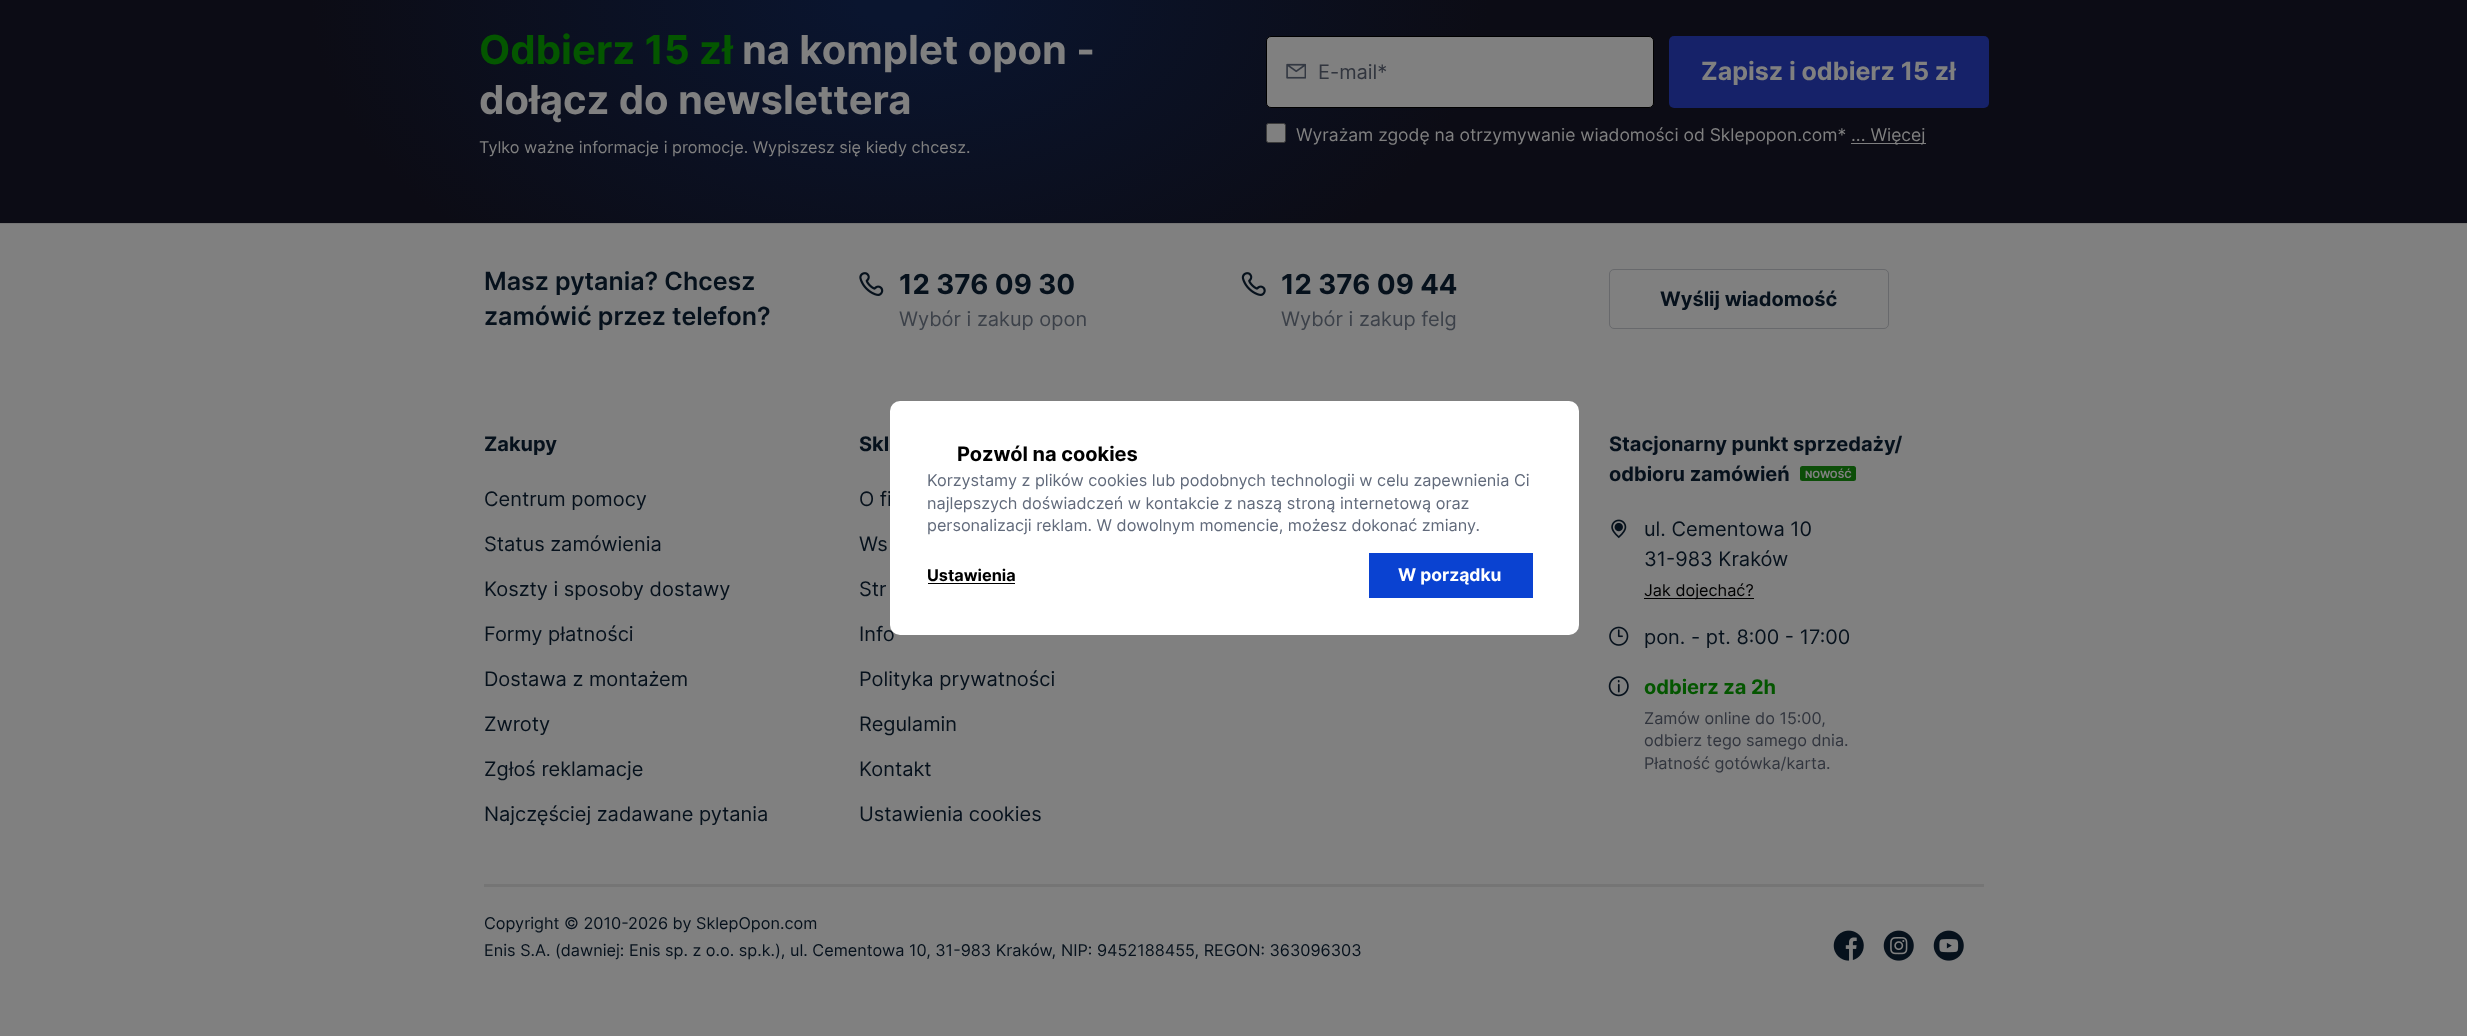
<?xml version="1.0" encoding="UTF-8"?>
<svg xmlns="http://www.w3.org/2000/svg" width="2467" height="1036">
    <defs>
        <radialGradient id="g1" gradientUnits="userSpaceOnUse" cx="0" cy="0" r="1" gradientTransform="matrix(1034 0 0 607 899 0.4)"><stop offset="0.04" stop-color="#0A152F"/><stop offset="0.57" stop-color="#0C0C15"/></radialGradient>
    </defs>
    <rect width="100%" height="100%" fill="#808080"/>
    <rect x="0" y="0" width="2467" height="223" fill="url(#g1)"/>
    <text x="479" y="64" font-family="Inter" font-size="40" font-weight="700" fill="#045600">Odbierz 15 zł</text>
    <text x="742" y="64" font-family="Inter" font-size="40" font-weight="700" fill="#808080">na komplet opon -</text>
    <text x="479" y="114" font-family="Inter" font-size="40" font-weight="700" fill="#808080">dołącz do newslettera</text>
    <text x="479" y="153" font-family="Inter" font-size="16.25" fill="#808080">Tylko ważne informacje i promocje. Wypiszesz się kiedy chcesz.</text>
    <rect x="1266.5" y="36.5" width="387" height="71" rx="4.5" fill="#808080" stroke="#000000"/>
    <image x="1286" y="63" width="20" height="16" href="img_01.png"/>
    <text x="1318" y="79" font-family="Inter" font-size="20" fill="#31353E">E-mail*</text>
    <rect x="1669" y="36" width="320" height="72" rx="5" fill="#162269"/>
    <text x="1701" y="80" font-family="Inter" font-size="25" font-weight="700" fill="#808080">Zapisz i odbierz 15 zł</text>
    <rect x="1266.5" y="123.5" width="19" height="19" rx="2" fill="#808080" stroke="#3B3B3B"/>
    <text x="1296" y="141" font-family="Inter" font-size="17.5" fill="#808080">Wyrażam zgodę na otrzymywanie wiadomości od Sklepopon.com*</text>
    <rect x="1851" y="143" width="75" height="1" fill="#7E7E7F"/>
    <text x="1851" y="141" font-family="Inter" font-size="17.5" fill="#808080">... Więcej</text>
    <rect x="0" y="223" width="2467" height="1" fill="#757575"/>
    <text font-family="Inter" font-size="25" font-weight="600" fill="#06111C">
        <tspan x="484" y="290">Masz pytania? Chcesz</tspan>
        <tspan x="484" y="325">zamówić przez telefon?</tspan>
    </text>
    <image x="859" y="272" width="25" height="24" href="img_02.png"/>
    <text x="899" y="294" font-family="Inter" font-size="27.5" font-weight="700" fill="#06111C">12 376 09 30</text>
    <text x="899" y="326" font-family="Inter" font-size="20" fill="#3C4149">Wybór i zakup opon</text>
    <image x="1241" y="272" width="25" height="24" href="img_03.png"/>
    <text x="1281" y="294" font-family="Inter" font-size="27.5" font-weight="700" fill="#06111C">12 376 09 44</text>
    <text x="1281" y="326" font-family="Inter" font-size="20" fill="#3C4149">Wybór i zakup felg</text>
    <rect x="1609.5" y="269.5" width="279" height="59" rx="4.5" fill="none" stroke="#68696C"/>
    <text x="1660" y="306" font-family="Inter" font-size="20" font-weight="700" fill="#06111C">Wyślij wiadomość</text>
    <text x="484" y="451" font-family="Inter" font-size="20" font-weight="700" fill="#06111C">Zakupy</text>
    <text x="484" y="506" font-family="Inter" font-size="20" fill="#06111C">Centrum pomocy</text>
    <text x="484" y="551" font-family="Inter" font-size="20" fill="#06111C">Status zamówienia</text>
    <text x="484" y="596" font-family="Inter" font-size="20" fill="#06111C">Koszty i sposoby dostawy</text>
    <text x="484" y="641" font-family="Inter" font-size="20" fill="#06111C">Formy płatności</text>
    <text x="484" y="686" font-family="Inter" font-size="20" fill="#06111C">Dostawa z montażem</text>
    <text x="484" y="731" font-family="Inter" font-size="20" fill="#06111C">Zwroty</text>
    <text x="484" y="776" font-family="Inter" font-size="20" fill="#06111C">Zgłoś reklamacje</text>
    <text x="484" y="821" font-family="Inter" font-size="20" fill="#06111C">Najczęściej zadawane pytania</text>
    <text x="859" y="451" font-family="Inter" font-size="20" font-weight="700" fill="#06111C">Skl</text>
    <text x="859" y="506" font-family="Inter" font-size="20" fill="#06111C">O fi</text>
    <text x="859" y="551" font-family="Inter" font-size="20" fill="#06111C">Ws</text>
    <text x="859" y="596" font-family="Inter" font-size="20" fill="#06111C">Str</text>
    <text x="859" y="641" font-family="Inter" font-size="20" fill="#06111C">Info</text>
    <text x="859" y="686" font-family="Inter" font-size="20" fill="#06111C">Polityka prywatności</text>
    <text x="859" y="731" font-family="Inter" font-size="20" fill="#06111C">Regulamin</text>
    <text x="859" y="776" font-family="Inter" font-size="20" fill="#06111C">Kontakt</text>
    <text x="859" y="821" font-family="Inter" font-size="20" fill="#06111C">Ustawienia cookies</text>
    <text font-family="Inter" font-size="20" font-weight="700" fill="#06111C">
        <tspan x="1609" y="451">Stacjonarny punkt sprzedaży/</tspan>
        <tspan x="1609" y="481">odbioru zamówień</tspan>
    </text>
    <rect x="1800" y="466" width="56" height="15" rx="2.5" fill="#0C4E08"/>
    <text x="1805" y="478" font-family="Inter" font-size="10" font-weight="700" fill="#808080">NOWOŚĆ</text>
    <image x="1611" y="519" width="16" height="20" href="img_04.png"/>
    <text font-family="Inter" font-size="20" fill="#06111C">
        <tspan x="1644" y="536">ul. Cementowa 10</tspan>
        <tspan x="1644" y="566">31-983 Kraków</tspan>
    </text>
    <rect x="1644" y="598" width="110" height="1" fill="#000000"/>
    <text x="1644" y="596" font-family="Inter" font-size="16.25" fill="#000000">Jak dojechać?</text>
    <image x="1609" y="626" width="20" height="20" href="img_05.png"/>
    <text x="1644" y="644" font-family="Inter" font-size="20" fill="#06111C">pon. - pt. 8:00 - 17:00</text>
    <image x="1608" y="676" width="21" height="21" href="img_06.png"/>
    <text x="1644" y="694" font-family="Inter" font-size="20" font-weight="700" fill="#045600">odbierz za 2h</text>
    <text font-family="Inter" font-size="16.25" fill="#31353E">
        <tspan x="1644" y="724">Zamów online do 15:00,</tspan>
        <tspan x="1644" y="746">odbierz tego samego dnia.</tspan>
        <tspan x="1644" y="769">Płatność gotówka/karta.</tspan>
    </text>
    <rect x="484" y="884" width="1500" height="3" fill="#757575"/>
    <text font-family="Inter" font-size="16.25" fill="#06111C">
        <tspan x="484" y="929">Copyright © 2010-2026 by SklepOpon.com</tspan>
        <tspan x="484" y="956">Enis S.A. (dawniej: Enis sp. z o.o. sp.k.),</tspan>
    </text>
    <text x="790" y="956" font-family="Inter" font-size="16.25" fill="#06111C">ul. Cementowa 10, 31-983 Kraków,</text>
    <text x="1061" y="956" font-family="Inter" font-size="16.25" fill="#06111C">NIP: 9452188455, REGON: 363096303</text>
    <image x="1833" y="930" width="31" height="31" href="img_07.png"/>
    <image x="1883" y="930" width="31" height="31" href="img_08.png"/>
    <image x="1933" y="930" width="31" height="31" href="img_09.png"/>
    <rect x="890" y="401" width="689" height="234" rx="10" fill="#FFFFFF"/>
    <text x="957" y="461" font-family="Inter" font-size="20" font-weight="700" fill="#000000">Pozwól na cookies</text>
    <text font-family="Inter" font-size="16.25" fill="#616A7B">
        <tspan x="927" y="486">Korzystamy z plików cookies lub podobnych technologii w celu zapewnienia Ci</tspan>
        <tspan x="927" y="509">najlepszych doświadczeń w kontakcie z naszą stroną internetową oraz</tspan>
        <tspan x="927" y="531">personalizacji reklam. W dowolnym momencie, możesz dokonać zmiany.</tspan>
    </text>
    <text x="927" y="581" font-family="Inter" font-size="16.25" font-weight="700" fill="#000000">Ustawienia</text>
    <rect x="928" y="583" width="87" height="1" fill="#000000"/>
    <rect x="1369" y="553" width="164" height="45" fill="#0A42D1"/>
    <text x="1398" y="581" font-family="Inter" font-size="17.5" font-weight="700" fill="#FFFFFF">W porządku</text>
</svg>
